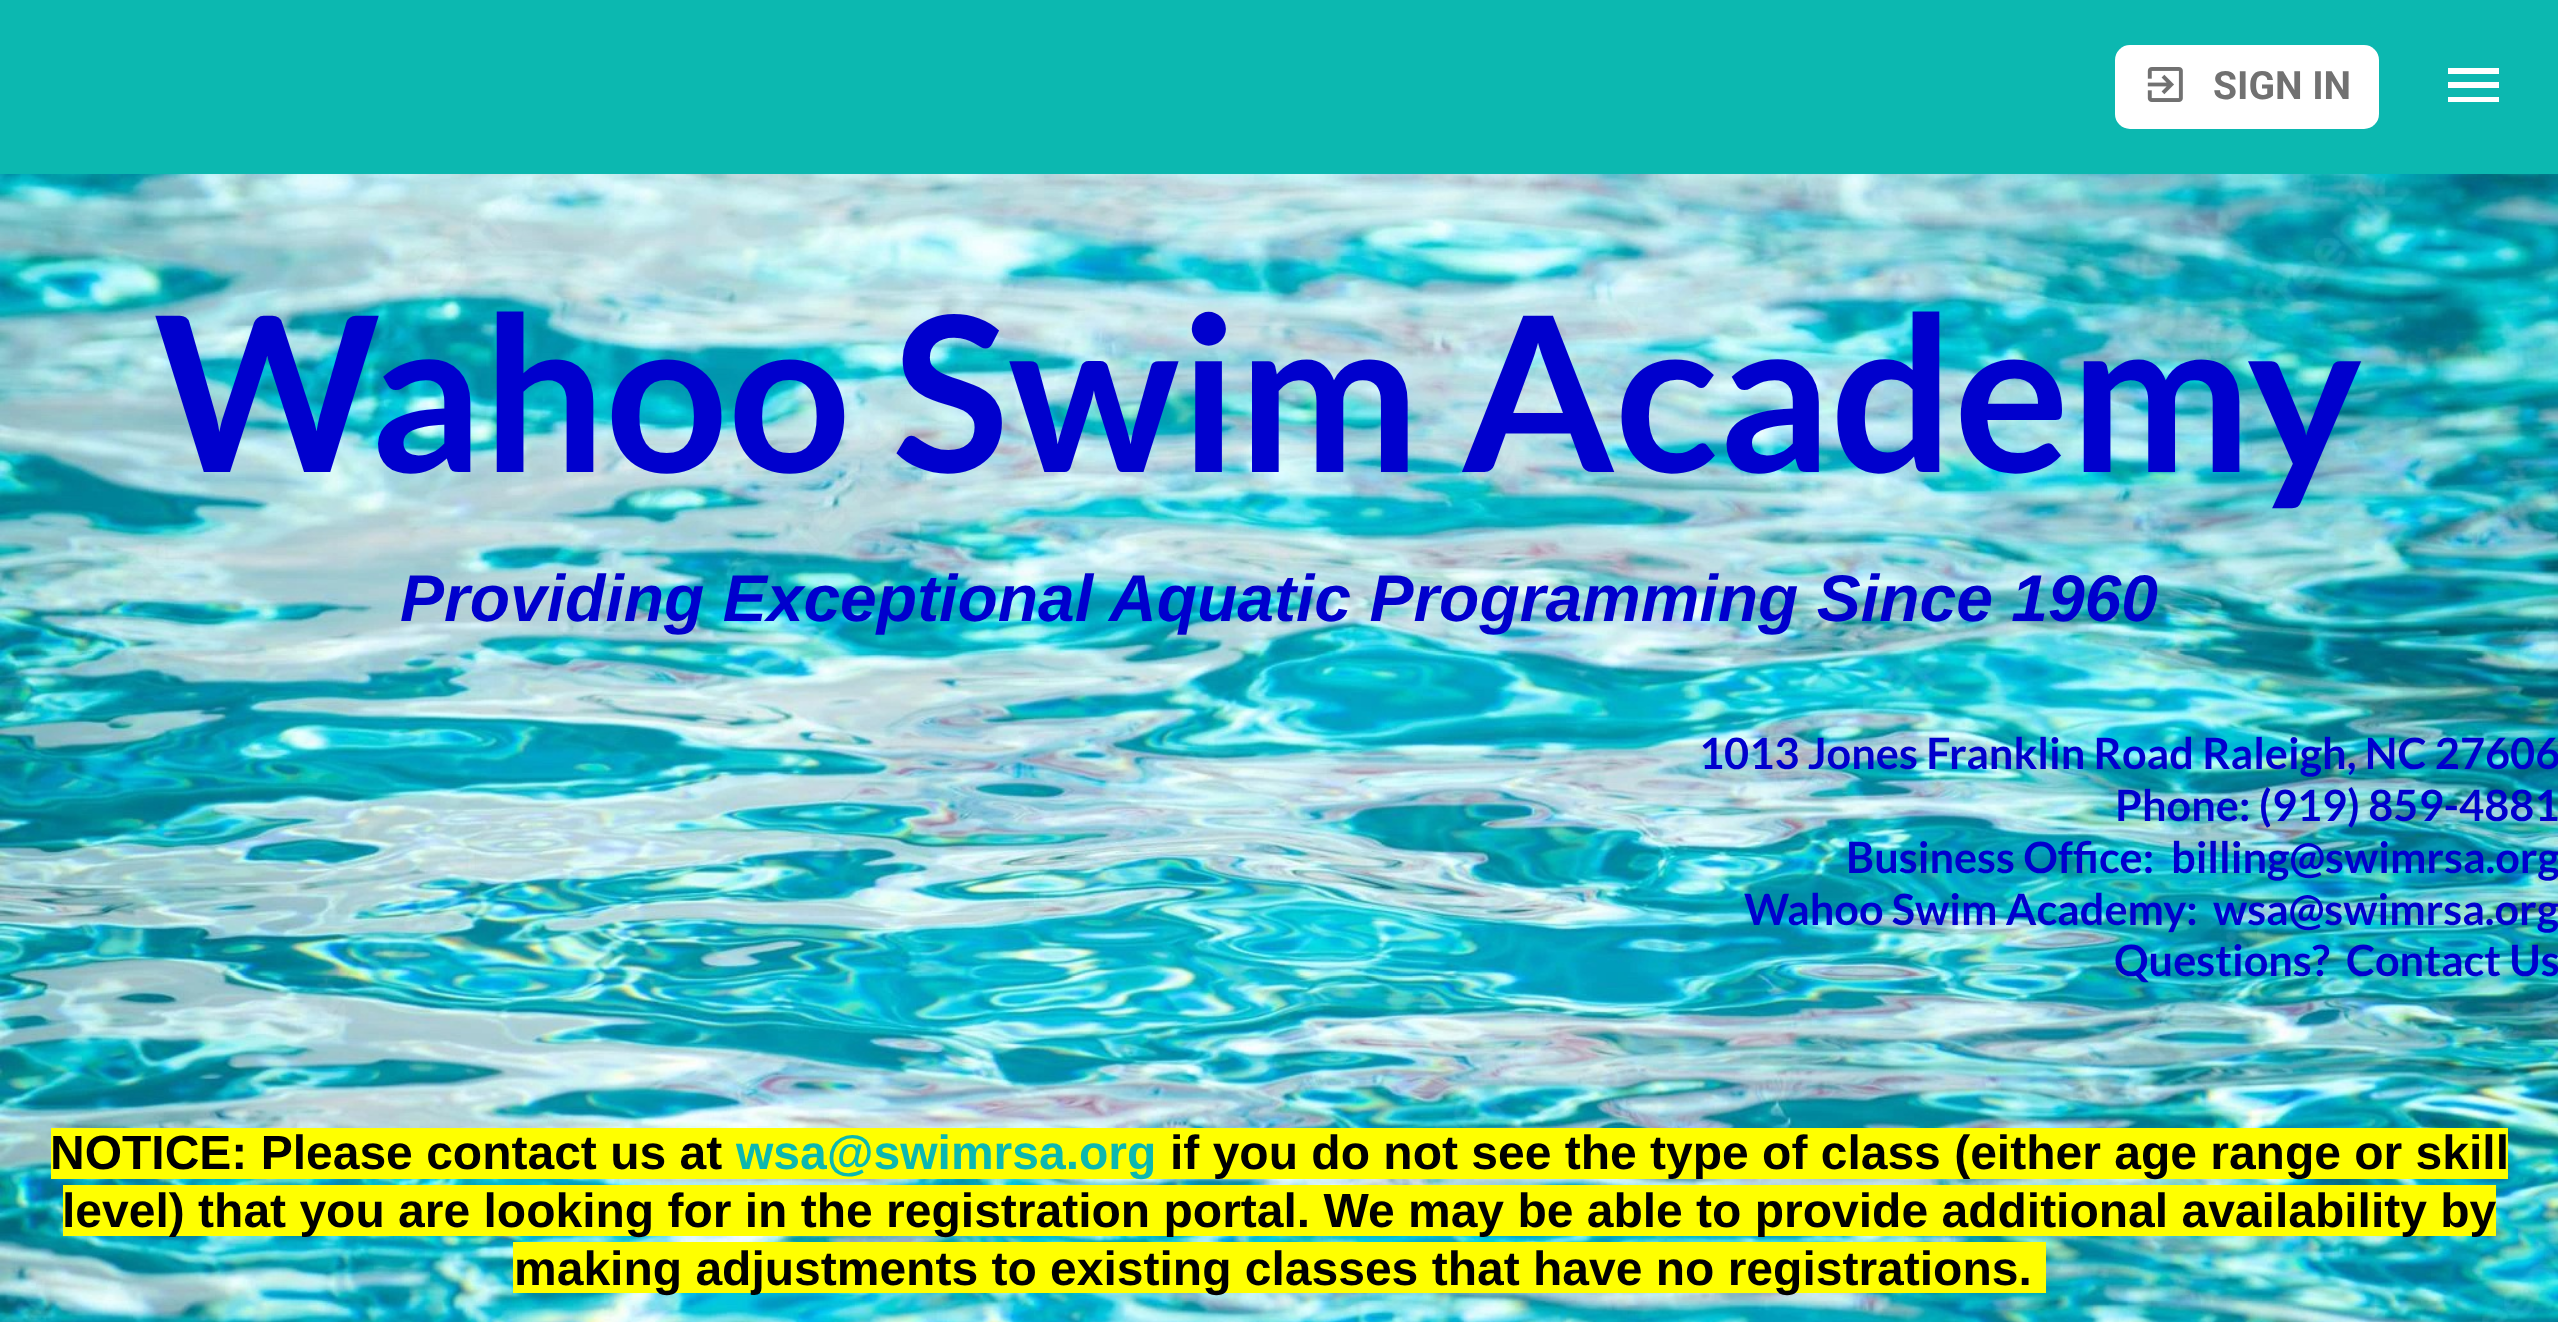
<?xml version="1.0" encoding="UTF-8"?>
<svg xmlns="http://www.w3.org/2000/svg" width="2558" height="1322">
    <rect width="100%" height="100%" fill="#FFFFFF"/>
    <image x="0" y="174" width="2558" height="906" href="img_01.png"/>
    <rect x="0" y="0" width="2558" height="174" fill="#0CB8B0"/>
    <rect x="2115" y="45" width="264" height="84" rx="15" fill="#FFFFFF"/>
    <image x="2147" y="67" width="36" height="35" href="img_02.png"/>
    <text x="2213" y="99" font-family="Roboto" font-size="39" font-weight="700" fill="#717171">SIGN IN</text>
    <path d="M 2448 68 H 2499 V 74 H 2448 Z M 2448 82 H 2499 V 88 H 2448 Z M 2448 97 H 2499 V 102 H 2448 Z" fill="#FFFFFF"/>
    <text x="154" y="472" font-family="Lato" font-size="216" font-weight="700" fill="#0000CD">Wahoo Swim Academy</text>
    <text x="400" y="621" font-family="Liberation Sans" font-size="66" font-weight="700" font-style="italic" fill="#0000CD">Providing Exceptional Aquatic Programming Since 1960</text>
    <text x="1699" y="769" font-family="Lato" font-size="43.25" font-weight="700" fill="#0000CD">1013 Jones Franklin Road Raleigh, NC 27606</text>
    <text x="2115" y="821" font-family="Lato" font-size="43.25" font-weight="700" fill="#0000CD">Phone: (919) 859-4881</text>
    <text x="1846" y="873" font-family="Lato" font-size="43.25" font-weight="700" fill="#0000CD">Business Office:</text>
    <text x="2171" y="873" font-family="Lato" font-size="43.25" font-weight="700" fill="#0000CD">billing@swimrsa.org</text>
    <text x="1744" y="925" font-family="Lato" font-size="43.25" font-weight="700" fill="#0000CD">Wahoo Swim Academy:</text>
    <text x="2213" y="925" font-family="Lato" font-size="43.25" font-weight="700" fill="#0000CD">wsa@swimrsa.org</text>
    <text x="2114" y="976" font-family="Lato" font-size="43.25" font-weight="700" fill="#0000CD">Questions?</text>
    <text x="2346" y="976" font-family="Lato" font-size="43.25" font-weight="700" fill="#0000CD">Contact Us</text>
    <image x="0" y="1080" width="2558" height="242" href="img_03.png"/>
    <rect x="51" y="1128" width="2457" height="51" fill="#FFFF00"/>
    <text x="50" y="1169" font-family="Liberation Sans" font-size="48" font-weight="700" fill="#000000">NOTICE: Please contact us at</text>
    <text x="736" y="1169" font-family="Liberation Sans" font-size="48" font-weight="700" fill="#0CB8B0">wsa@swimrsa.org</text>
    <text x="1170" y="1169" font-family="Liberation Sans" font-size="48" font-weight="700" fill="#000000">if you do not see the type of class (either age range or skill</text>
    <rect x="63" y="1185" width="2433" height="51" fill="#FFFF00"/>
    <text x="62" y="1227" font-family="Liberation Sans" font-size="48" font-weight="700" fill="#000000">level) that you are looking for in the registration portal. We may be able to provide additional availability by</text>
    <rect x="513" y="1242" width="1533" height="51" fill="#FFFF00"/>
    <text x="514" y="1285" font-family="Liberation Sans" font-size="48" font-weight="700" fill="#000000">making adjustments to existing classes that have no registrations.</text>
</svg>
